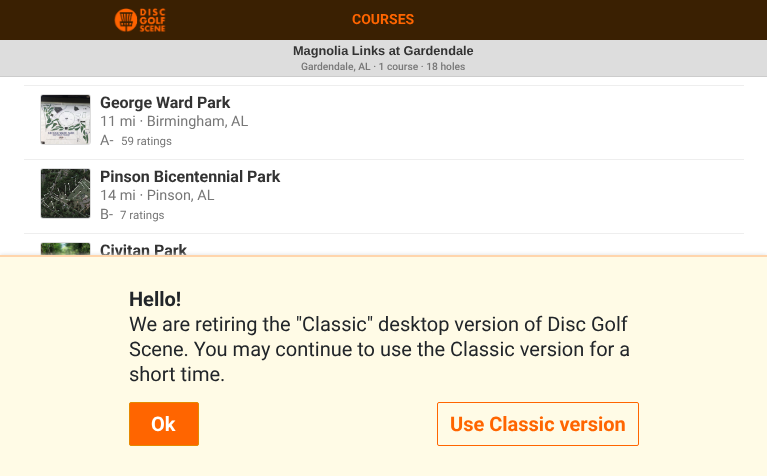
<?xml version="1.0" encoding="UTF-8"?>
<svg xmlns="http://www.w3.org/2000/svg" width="767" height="476">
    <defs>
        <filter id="blur1" x="-50%" y="-200%" width="200%" height="500%"><feGaussianBlur stdDeviation="2"/></filter>
    </defs>
    <rect width="100%" height="100%" fill="#FFFFFF"/>
    <rect x="0" y="0" width="767" height="40" fill="#3A2002"/>
    <image x="114" y="8" width="52" height="24" href="img_01.png"/>
    <text x="352" y="24" font-family="Roboto" font-size="14" font-weight="700" fill="#FF6500">COURSES</text>
    <rect x="0" y="40" width="767" height="36" fill="#DDDDDD"/>
    <rect x="0" y="76" width="767" height="1" fill="#CCCCCC"/>
    <text x="293" y="55" font-family="Liberation Sans" font-size="12.75" font-weight="700" fill="#333333">Magnolia Links at Gardendale</text>
    <text x="301" y="70" font-family="Roboto" font-size="10.25" font-weight="500" fill="#777777">Gardendale, AL · 1 course · 18 holes</text>
    <rect x="24" y="85" width="720" height="1" fill="#EEEEEE"/>
    <rect x="24" y="159" width="720" height="1" fill="#EEEEEE"/>
    <rect x="40.5" y="94.5" width="50" height="50" rx="2.5" fill="none" stroke="#DDDDDD"/>
    <image x="41" y="95" width="49" height="49" href="img_02.png"/>
    <text x="100" y="108" font-family="Roboto" font-size="16" font-weight="700" fill="#333333">George Ward Park</text>
    <text font-family="Roboto" font-size="14.4" fill="#777777">
        <tspan x="100" y="126">11 mi · Birmingham, AL</tspan>
        <tspan x="100" y="145">A-</tspan>
    </text>
    <text x="121" y="145" font-family="Roboto" font-size="11.5" fill="#777777">59 ratings</text>
    <rect x="24" y="233" width="720" height="1" fill="#EEEEEE"/>
    <rect x="40.5" y="168.5" width="50" height="50" rx="2.5" fill="none" stroke="#DDDDDD"/>
    <image x="41" y="169" width="49" height="49" href="img_03.png"/>
    <text x="100" y="182" font-family="Roboto" font-size="16" font-weight="700" fill="#333333">Pinson Bicentennial Park</text>
    <text font-family="Roboto" font-size="14.4" fill="#777777">
        <tspan x="100" y="200">14 mi · Pinson, AL</tspan>
        <tspan x="100" y="219">B-</tspan>
    </text>
    <text x="120" y="219" font-family="Roboto" font-size="11.5" fill="#777777">7 ratings</text>
    <rect x="40.5" y="242.5" width="50" height="50" rx="2.5" fill="none" stroke="#DDDDDD"/>
    <image x="41" y="243" width="49" height="12" href="img_04.png"/>
    <text x="100" y="256" font-family="Roboto" font-size="16" font-weight="700" fill="#333333">Civitan Park</text>
    <rect x="0" y="255" width="767" height="221" fill="#DDDDDD" filter="url(#blur1)"/>
    <rect x="0" y="257" width="767" height="219" fill="#FFFBE6"/>
    <rect x="0" y="255" width="767" height="2" fill="#FFD5AC"/>
    <text x="129" y="306" font-family="Roboto" font-size="20" font-weight="700" fill="#212529">Hello!</text>
    <text font-family="Roboto" font-size="20" fill="#212529">
        <tspan x="129" y="331">We are retiring the "Classic" desktop version of Disc Golf</tspan>
        <tspan x="129" y="356">Scene. You may continue to use the Classic version for a</tspan>
        <tspan x="129" y="381">short time.</tspan>
    </text>
    <rect x="129.5" y="402.5" width="69" height="43" rx="1.5" fill="#FF6500" stroke="#E58900"/>
    <text x="151" y="431" font-family="Roboto" font-size="20" font-weight="700" fill="#FFFFFF">Ok</text>
    <rect x="437.5" y="402.5" width="201" height="43" rx="1.5" fill="none" stroke="#FF6500"/>
    <text x="450" y="431" font-family="Roboto" font-size="20" font-weight="700" fill="#FF6500">Use Classic version</text>
</svg>
